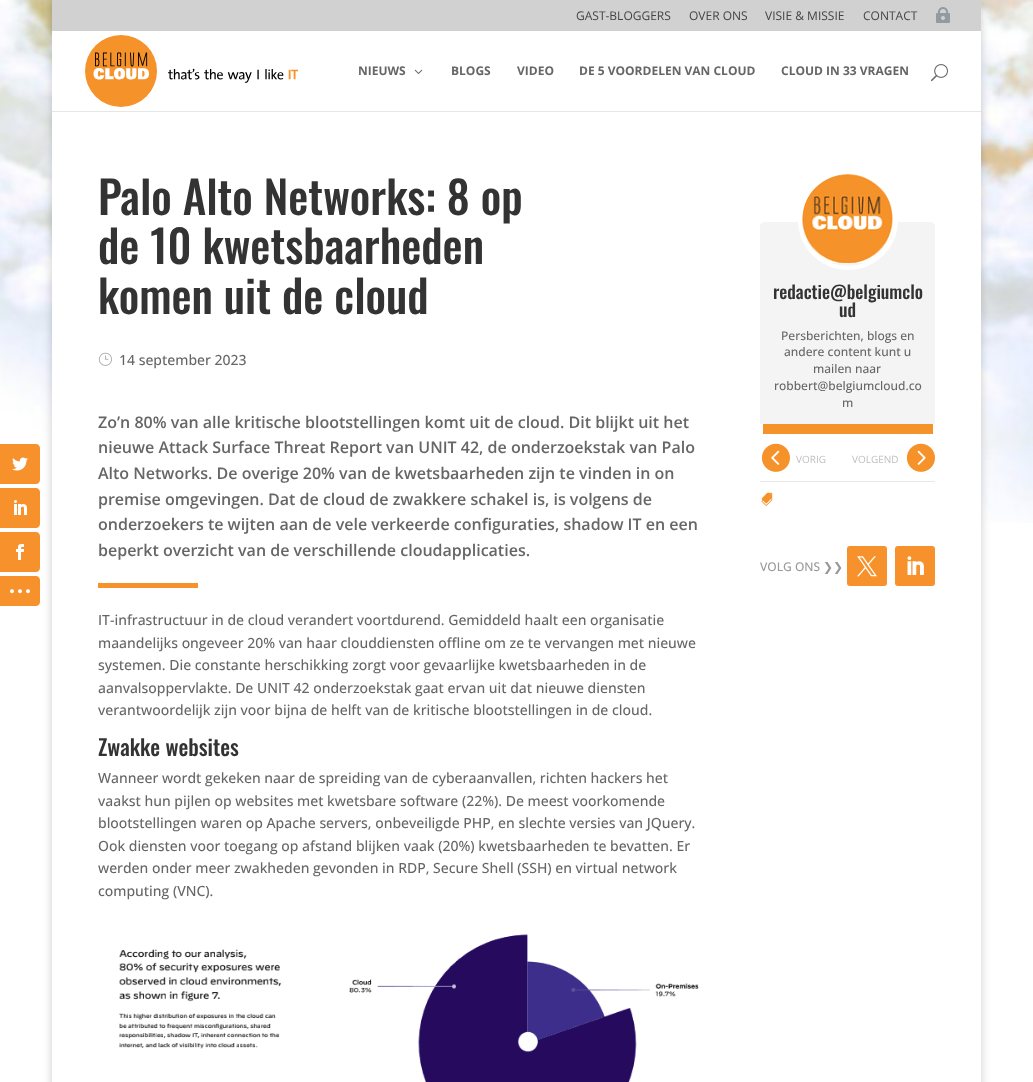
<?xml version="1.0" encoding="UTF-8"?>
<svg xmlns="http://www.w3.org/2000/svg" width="1033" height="1082">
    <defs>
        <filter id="blur1" x="-50%" y="-200%" width="200%" height="500%"><feGaussianBlur stdDeviation="5"/></filter>
    </defs>
    <rect width="100%" height="100%" fill="#FFFFFF"/>
    <image x="0" y="0" width="1033" height="523" href="img_01.png"/>
    <rect x="52" y="0" width="929" height="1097" fill="#000000" fill-opacity="0.2" filter="url(#blur1)"/>
    <path d="M 0 444 H 36 C 38 444 40 446 40 448 V 480 C 40 482 38 484 36 484 H 0 Z" fill="#F6912B"/>
    <image x="12" y="457" width="16" height="14" href="img_02.png"/>
    <path d="M 0 488 H 36 C 38 488 40 490 40 492 V 524 C 40 526 38 528 36 528 H 0 Z" fill="#F6912B"/>
    <image x="14" y="500" width="13" height="15" href="img_03.png"/>
    <path d="M 0 532 H 36 C 38 532 40 534 40 536 V 568 C 40 570 38 572 36 572 H 0 Z" fill="#F6912B"/>
    <image x="16" y="544" width="8" height="16" href="img_04.png"/>
    <path d="M 0 576 H 36 C 38 576 40 578 40 580 V 602 C 40 604 38 606 36 606 H 0 Z" fill="#F6912B"/>
    <image x="10" y="589" width="20" height="5" href="img_05.png"/>
    <rect x="52" y="0" width="929" height="31" fill="#D1D1D1"/>
    <text x="576" y="20" font-family="Open Sans" font-size="12" fill="#444444">GAST-BLOGGERS</text>
    <text x="689" y="20" font-family="Open Sans" font-size="12" fill="#444444">OVER ONS</text>
    <text x="765" y="20" font-family="Open Sans" font-size="12" fill="#444444">VISIE &amp; MISSIE</text>
    <text x="863" y="20" font-family="Open Sans" font-size="12" fill="#444444">CONTACT</text>
    <image x="936" y="7" width="14" height="16" href="img_06.png"/>
    <rect x="52" y="111" width="929" height="1" fill="#E6E6E6"/>
    <rect x="52" y="31" width="929" height="80" fill="#FFFFFF"/>
    <image x="85" y="35" width="213" height="72" href="img_07.png"/>
    <text x="358" y="75" font-family="Open Sans" font-size="12" font-weight="700" fill="#666666">NIEUWS</text>
    <image x="414" y="69" width="9" height="5" href="img_08.png"/>
    <text x="451" y="75" font-family="Open Sans" font-size="12" font-weight="700" fill="#666666">BLOGS</text>
    <text x="517" y="75" font-family="Open Sans" font-size="12" font-weight="700" fill="#666666">VIDEO</text>
    <text x="579" y="75" font-family="Open Sans" font-size="12" font-weight="700" fill="#666666">DE 5 VOORDELEN VAN CLOUD</text>
    <text x="781" y="75" font-family="Open Sans" font-size="12" font-weight="700" fill="#666666">CLOUD IN 33 VRAGEN</text>
    <image x="931" y="64" width="17" height="18" href="img_09.png"/>
    <rect x="52" y="112" width="929" height="970" fill="#FFFFFF"/>
    <text font-family="Oswald" font-size="45" font-weight="500" fill="#333333">
        <tspan x="98" y="215">Palo Alto Networks: 8 op</tspan>
        <tspan x="98" y="264">de 10 kwetsbaarheden</tspan>
        <tspan x="98" y="314">komen uit de cloud</tspan>
    </text>
    <image x="98" y="352" width="14" height="14" href="img_10.png"/>
    <text x="119" y="365" font-family="Open Sans" font-size="14" font-weight="500" fill="#666666">14 september 2023</text>
    <text font-family="Open Sans" font-size="16" font-weight="600" fill="#666666">
        <tspan x="98" y="428">Zo’n 80% van alle kritische blootstellingen komt uit de cloud. Dit blijkt uit het</tspan>
        <tspan x="98" y="453">nieuwe Attack Surface Threat Report van UNIT 42, de onderzoekstak van Palo</tspan>
        <tspan x="98" y="479">Alto Networks. De overige 20% van de kwetsbaarheden zijn te vinden in on</tspan>
        <tspan x="98" y="505">premise omgevingen. Dat de cloud de zwakkere schakel is, is volgens de</tspan>
        <tspan x="98" y="530">onderzoekers te wijten aan de vele verkeerde configuraties, shadow IT en een</tspan>
        <tspan x="98" y="556">beperkt overzicht van de verschillende cloudapplicaties.</tspan>
    </text>
    <rect x="98" y="583" width="100" height="5" fill="#F6912B"/>
    <text font-family="Open Sans" font-size="14" font-weight="500" fill="#666666">
        <tspan x="98" y="625">IT-infrastructuur in de cloud verandert voortdurend. Gemiddeld haalt een organisatie</tspan>
        <tspan x="98" y="648">maandelijks ongeveer 20% van haar clouddiensten offline om ze te vervangen met nieuwe</tspan>
        <tspan x="98" y="670">systemen. Die constante herschikking zorgt voor gevaarlijke kwetsbaarheden in de</tspan>
        <tspan x="98" y="693">aanvalsoppervlakte. De UNIT 42 onderzoekstak gaat ervan uit dat nieuwe diensten</tspan>
        <tspan x="98" y="715">verantwoordelijk zijn voor bijna de helft van de kritische blootstellingen in de cloud.</tspan>
    </text>
    <text x="98" y="756" font-family="Oswald" font-size="22" font-weight="500" fill="#333333">Zwakke websites</text>
    <text font-family="Open Sans" font-size="14" font-weight="500" fill="#666666">
        <tspan x="98" y="783">Wanneer wordt gekeken naar de spreiding van de cyberaanvallen, richten hackers het</tspan>
        <tspan x="98" y="806">vaakst hun pijlen op websites met kwetsbare software (22%). De meest voorkomende</tspan>
        <tspan x="98" y="828">blootstellingen waren op Apache servers, onbeveiligde PHP, en slechte versies van JQuery.</tspan>
        <tspan x="98" y="851">Ook diensten voor toegang op afstand blijken vaak (20%) kwetsbaarheden te bevatten. Er</tspan>
        <tspan x="98" y="873">werden onder meer zwakheden gevonden in RDP, Secure Shell (SSH) en virtual network</tspan>
        <tspan x="98" y="896">computing (VNC).</tspan>
    </text>
    <image x="119" y="934" width="580" height="148" href="img_11.png"/>
    <path d="M 765 222 H 930 C 933 222 935 224 935 227 V 424 H 760 V 227 C 760 224 762 222 765 222 Z" fill="#F4F4F4"/>
    <circle cx="848" cy="220" r="48" fill="none" stroke="#FFFFFF" stroke-width="4"/>
    <image x="802" y="174" width="92" height="89" href="img_12.png"/>
    <rect x="763" y="424" width="170" height="10" fill="#F5922A"/>
    <text x="773" y="299" font-family="Oswald" font-size="18" font-weight="500" fill="#333333">redactie@belgiumclo</text>
    <text x="839" y="317" font-family="Oswald" font-size="18" font-weight="500" fill="#333333">ud</text>
    <text x="781" y="340" font-family="Open Sans" font-size="12" font-weight="500" fill="#666666">Persberichten, blogs en</text>
    <text x="784" y="356" font-family="Open Sans" font-size="12" font-weight="500" fill="#666666">andere content kunt u</text>
    <text x="813" y="373" font-family="Open Sans" font-size="12" font-weight="500" fill="#666666">mailen naar</text>
    <text x="774" y="390" font-family="Open Sans" font-size="12" font-weight="500" fill="#666666">robbert@belgiumcloud.co</text>
    <text x="842" y="407" font-family="Open Sans" font-size="12" font-weight="500" fill="#666666">m</text>
    <image x="761" y="443" width="29" height="29" href="img_13.png"/>
    <text x="796" y="463" font-family="Open Sans" font-size="10" fill="#BFBFBF">VORIG</text>
    <text x="852" y="463" font-family="Open Sans" font-size="10" fill="#BFBFBF">VOLGEND</text>
    <image x="906" y="443" width="29" height="29" href="img_14.png"/>
    <rect x="760" y="481" width="175" height="1" fill="#E8E8E8"/>
    <image x="761" y="492" width="12" height="14" href="img_15.png"/>
    <text x="760" y="571" font-family="Open Sans" font-size="12" font-weight="500" fill="#999999">VOLG ONS</text>
    <text x="823" y="571" font-family="DejaVu Sans" font-size="12" fill="#999999">❯❯</text>
    <rect x="847" y="546" width="40" height="40" rx="3" fill="#F6912B"/>
    <image x="857" y="556" width="20" height="21" href="img_16.png"/>
    <rect x="895" y="546" width="40" height="40" rx="3" fill="#F6912B"/>
    <image x="907" y="556" width="17" height="19" href="img_17.png"/>
</svg>
